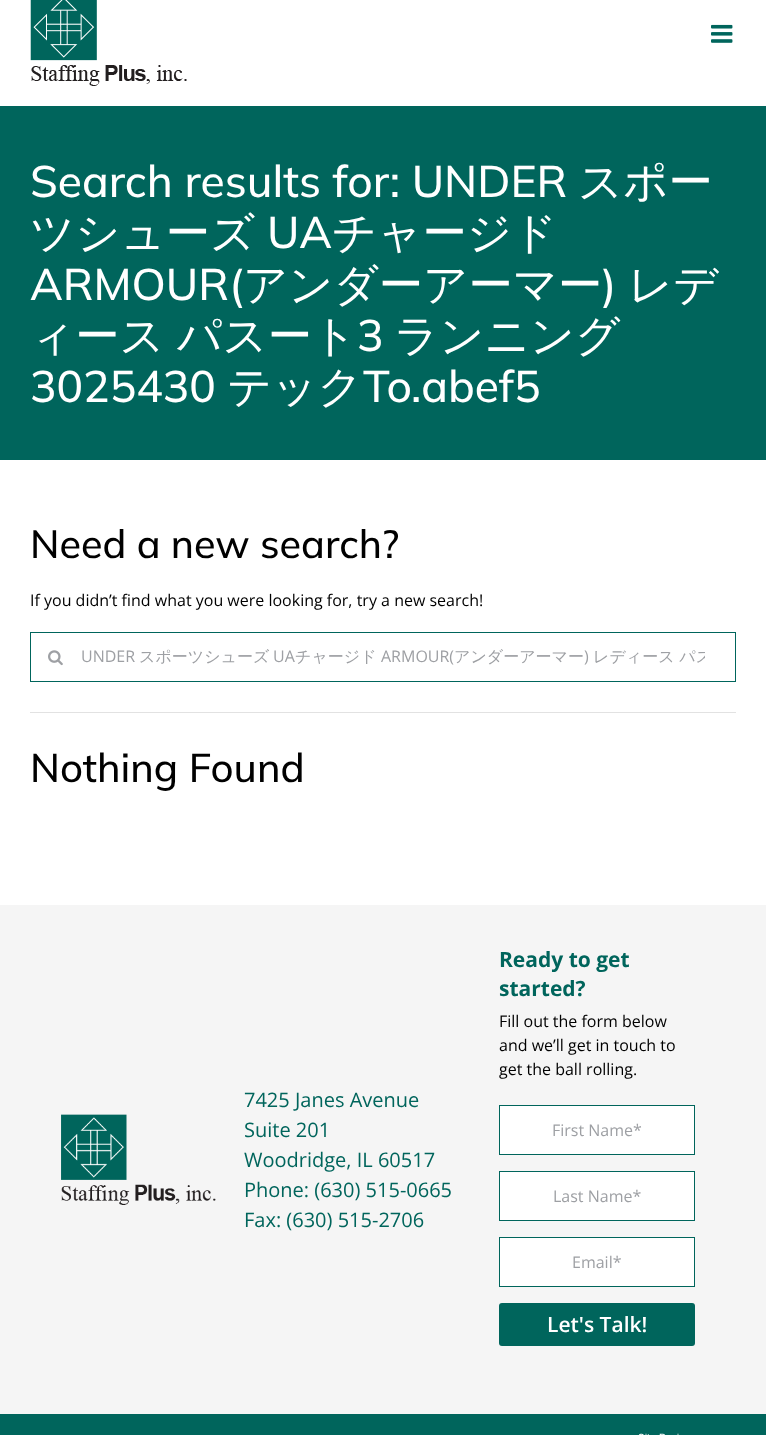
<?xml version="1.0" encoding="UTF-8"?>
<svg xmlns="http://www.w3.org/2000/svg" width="766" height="1435">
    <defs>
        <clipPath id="clip1"><rect x="81" y="645" width="624" height="23"/></clipPath>
    </defs>
    <rect width="100%" height="100%" fill="#FFFFFF"/>
    <image x="30" y="0" width="157" height="86" href="img_01.png"/>
    <image x="711" y="24" width="22" height="19" href="img_02.png"/>
    <rect x="0" y="106" width="766" height="354" fill="#00655C"/>
    <text x="30" y="197" font-family="Mulish" font-size="44.25" font-weight="500" fill="#FFFFFF">Search results for: UNDER</text>
    <text x="578" y="197" font-family="WenQuanYi Zen Hei" font-size="44.25" font-weight="500" fill="#FFFFFF">スポー</text>
    <text x="30" y="248" font-family="WenQuanYi Zen Hei" font-size="44.25" font-weight="500" fill="#FFFFFF">ツシューズ</text>
    <text x="267" y="248" font-family="Mulish" font-size="44.25" font-weight="500" fill="#FFFFFF">UA</text>
    <text x="332" y="248" font-family="WenQuanYi Zen Hei" font-size="44.25" font-weight="500" fill="#FFFFFF">チャージド</text>
    <text x="30" y="300" font-family="Mulish" font-size="44.25" font-weight="500" fill="#FFFFFF">ARMOUR(</text>
    <text x="243" y="300" font-family="WenQuanYi Zen Hei" font-size="44.25" font-weight="500" fill="#FFFFFF">アンダーアーマー</text>
    <text x="602" y="300" font-family="Mulish" font-size="44.25" font-weight="500" fill="#FFFFFF">)</text>
    <text x="628" y="300" font-family="WenQuanYi Zen Hei" font-size="44.25" font-weight="500" fill="#FFFFFF">レデ</text>
    <text x="30" y="351" word-spacing="-1" font-family="WenQuanYi Zen Hei" font-size="44.25" font-weight="500" fill="#FFFFFF">ィース パスート</text>
    <text x="357" y="351" font-family="Mulish" font-size="44.25" font-weight="500" fill="#FFFFFF">3</text>
    <text x="394" y="351" font-family="WenQuanYi Zen Hei" font-size="44.25" font-weight="500" fill="#FFFFFF">ランニング</text>
    <text x="30" y="402" font-family="Mulish" font-size="44.25" font-weight="500" fill="#FFFFFF">3025430</text>
    <text x="227" y="402" font-family="WenQuanYi Zen Hei" font-size="44.25" font-weight="500" fill="#FFFFFF">テック</text>
    <text x="363" y="402" font-family="Mulish" font-size="44.25" font-weight="500" fill="#FFFFFF">To.abef5</text>
    <text x="30" y="558" font-family="Mulish" font-size="39.4" font-weight="500" fill="#000000">Need a new search?</text>
    <text x="30" y="606" font-family="Open Sans" font-size="16" fill="#000000">If you didn’t find what you were looking for, try a new search!</text>
    <rect x="30.5" y="632.5" width="705" height="49" fill="none" stroke="#00655C"/>
    <image x="48" y="650" width="15" height="16" href="img_03.png"/>
    <text x="81" y="662" font-family="Open Sans" font-size="16" fill="#9EA0A4">UNDER</text>
    <text x="139" y="662" font-family="WenQuanYi Zen Hei" font-size="16" font-weight="500" fill="#9EA0A4">スポーツシューズ</text>
    <text x="273" y="662" font-family="Open Sans" font-size="16" fill="#9EA0A4">UA</text>
    <text x="295" y="662" font-family="WenQuanYi Zen Hei" font-size="16" font-weight="500" fill="#9EA0A4">チャージド</text>
    <text x="381" y="662" font-family="Open Sans" font-size="16" fill="#9EA0A4">ARMOUR(</text>
    <text x="454" y="662" font-family="WenQuanYi Zen Hei" font-size="16" font-weight="500" fill="#9EA0A4">アンダーアーマー</text>
    <text x="584" y="662" font-family="Open Sans" font-size="16" fill="#9EA0A4">)</text>
    <g clip-path="url(#clip1)">
        <text x="593" y="662" font-family="WenQuanYi Zen Hei" font-size="16" font-weight="500" fill="#9EA0A4">レディース パス</text>
    </g>
    <rect x="30" y="712" width="706" height="1" fill="#E2E2E2"/>
    <text x="30" y="782" font-family="Mulish" font-size="40" font-weight="500" fill="#000000">Nothing Found</text>
    <rect x="0" y="905" width="766" height="509" fill="#F5F5F5"/>
    <image x="61" y="1114" width="155" height="91" href="img_04.png"/>
    <text font-family="Open Sans" font-size="20" fill="#00655C">
        <tspan x="244" y="1107">7425 Janes Avenue</tspan>
        <tspan x="244" y="1137">Suite 201</tspan>
        <tspan x="244" y="1167">Woodridge, IL 60517</tspan>
        <tspan x="244" y="1197">Phone: (630) 515-0665</tspan>
        <tspan x="244" y="1227">Fax: (630) 515-2706</tspan>
    </text>
    <text font-family="Open Sans" font-size="21" font-weight="700" fill="#00655C">
        <tspan x="499" y="967">Ready to get</tspan>
        <tspan x="499" y="996">started?</tspan>
    </text>
    <text font-family="Open Sans" font-size="16" fill="#000000">
        <tspan x="499" y="1027">Fill out the form below</tspan>
        <tspan x="499" y="1051">and we’ll get in touch to</tspan>
        <tspan x="499" y="1075">get the ball rolling.</tspan>
    </text>
    <rect x="499.5" y="1105.5" width="195" height="49" fill="#FFFFFF" stroke="#00655C"/>
    <text x="552" y="1136" font-family="Open Sans" font-size="16" fill="#9EA0A4">First Name*</text>
    <rect x="499.5" y="1171.5" width="195" height="49" fill="#FFFFFF" stroke="#00655C"/>
    <text x="553" y="1202" font-family="Open Sans" font-size="16" fill="#9EA0A4">Last Name*</text>
    <rect x="499.5" y="1237.5" width="195" height="49" fill="#FFFFFF" stroke="#00655C"/>
    <text x="572" y="1268" font-family="Open Sans" font-size="16" fill="#9EA0A4">Email*</text>
    <rect x="499" y="1303" width="196" height="43" rx="3" fill="#00655C"/>
    <text x="547" y="1332" font-family="Open Sans" font-size="21" font-weight="600" fill="#FFFFFF">Let's Talk!</text>
    <rect x="0" y="1414" width="766" height="21" fill="#00655C"/>
    <image x="639" y="1433" width="40" height="2" href="img_05.png"/>
</svg>
